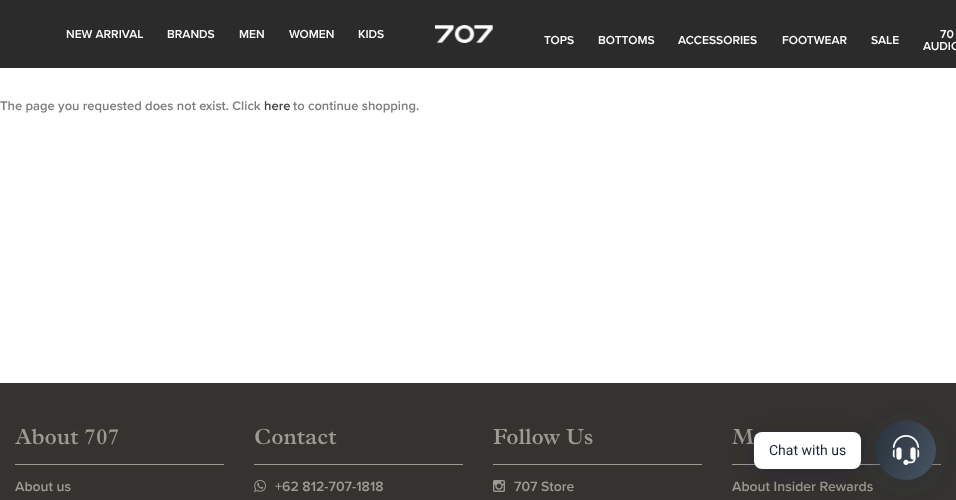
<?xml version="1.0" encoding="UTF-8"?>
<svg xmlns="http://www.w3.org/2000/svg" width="956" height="500">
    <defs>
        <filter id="blur1" x="-50%" y="-200%" width="200%" height="500%"><feGaussianBlur stdDeviation="12"/></filter>
        <linearGradient id="g1" gradientUnits="userSpaceOnUse" x1="870" y1="433" x2="942" y2="467"><stop offset="0" stop-color="#29323C"/><stop offset="1" stop-color="#485563"/></linearGradient>
        <filter id="blur2" x="-50%" y="-200%" width="200%" height="500%"><feGaussianBlur stdDeviation="16"/></filter>
    </defs>
    <rect width="100%" height="100%" fill="#FFFFFF"/>
    <rect x="0" y="0" width="956" height="68" fill="#2B2B2B"/>
    <text x="66" y="38" font-family="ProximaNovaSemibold" font-size="12" fill="#FFFFFF">NEW ARRIVAL</text>
    <text x="167" y="38" font-family="ProximaNovaSemibold" font-size="12" fill="#FFFFFF">BRANDS</text>
    <text x="239" y="38" font-family="ProximaNovaSemibold" font-size="12" fill="#FFFFFF">MEN</text>
    <text x="289" y="38" font-family="ProximaNovaSemibold" font-size="12" fill="#FFFFFF">WOMEN</text>
    <text x="358" y="38" font-family="ProximaNovaSemibold" font-size="12" fill="#FFFFFF">KIDS</text>
    <image x="435" y="25" width="58" height="18" href="img_01.png"/>
    <text x="544" y="44" font-family="ProximaNovaSemibold" font-size="12" fill="#FFFFFF">TOPS</text>
    <text x="598" y="44" font-family="ProximaNovaSemibold" font-size="12" fill="#FFFFFF">BOTTOMS</text>
    <text x="678" y="44" font-family="ProximaNovaSemibold" font-size="12" fill="#FFFFFF">ACCESSORIES</text>
    <text x="782" y="44" font-family="ProximaNovaSemibold" font-size="12" fill="#FFFFFF">FOOTWEAR</text>
    <text x="871" y="44" font-family="ProximaNovaSemibold" font-size="12" fill="#FFFFFF">SALE</text>
    <text x="940" y="38" font-family="ProximaNovaSemibold" font-size="12" fill="#FFFFFF">70</text>
    <text x="923" y="50" font-family="ProximaNovaSemibold" font-size="12" fill="#FFFFFF">AUDIO</text>
    <text x="0" y="110" font-family="ProximaNovaSemibold" font-size="13" fill="#7F7F7F">The page you requested does not exist. Click</text>
    <text x="264" y="110" font-family="ProximaNovaSemibold" font-size="13" fill="#444444">here</text>
    <text x="293" y="110" font-family="ProximaNovaSemibold" font-size="13" fill="#7F7F7F">to continue shopping.</text>
    <rect x="0" y="383" width="956" height="117" fill="#35332F"/>
    <rect x="15" y="464" width="209" height="1" fill="#9E9A92"/>
    <text x="15" y="444" font-family="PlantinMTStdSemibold" font-size="22" fill="#9E9A92">About 707</text>
    <text x="15" y="491" font-family="ProximaNovaSemibold" font-size="14" fill="#9E9A92">About us</text>
    <rect x="254" y="464" width="209" height="1" fill="#9E9A92"/>
    <text x="254" y="444" font-family="PlantinMTStdSemibold" font-size="22" fill="#9E9A92">Contact</text>
    <image x="254" y="480" width="12" height="12" href="img_02.png"/>
    <text x="275" y="491" font-family="ProximaNovaSemibold" font-size="14" fill="#9E9A92">+62 812-707-1818</text>
    <rect x="493" y="464" width="209" height="1" fill="#9E9A92"/>
    <text x="493" y="444" font-family="PlantinMTStdSemibold" font-size="22" fill="#9E9A92">Follow Us</text>
    <image x="493" y="480" width="12" height="12" href="img_03.png"/>
    <text x="514" y="491" font-family="ProximaNovaSemibold" font-size="14" fill="#9E9A92">707 Store</text>
    <rect x="732" y="464" width="209" height="1" fill="#9E9A92"/>
    <text x="732" y="444" font-family="PlantinMTStdSemibold" font-size="22" fill="#9E9A92">M</text>
    <text x="732" y="491" font-family="ProximaNovaSemibold" font-size="14" fill="#9E9A92">About Insider Rewards</text>
    <rect x="876" y="424" width="60" height="60" rx="30" fill="#29323C" fill-opacity="0.5" filter="url(#blur1)"/>
    <circle cx="906" cy="450" r="30" fill="url(#g1)"/>
    <rect x="754" y="438" width="107" height="37" rx="8" fill="#00122E" fill-opacity="0.24" filter="url(#blur2)"/>
    <rect x="754" y="432" width="107" height="37" rx="8" fill="#FFFFFF"/>
    <text x="769" y="455" font-family="Roboto" font-size="14" fill="#1E2433">Chat with us</text>
    <image x="892" y="435" width="28" height="30" href="img_04.png"/>
</svg>
